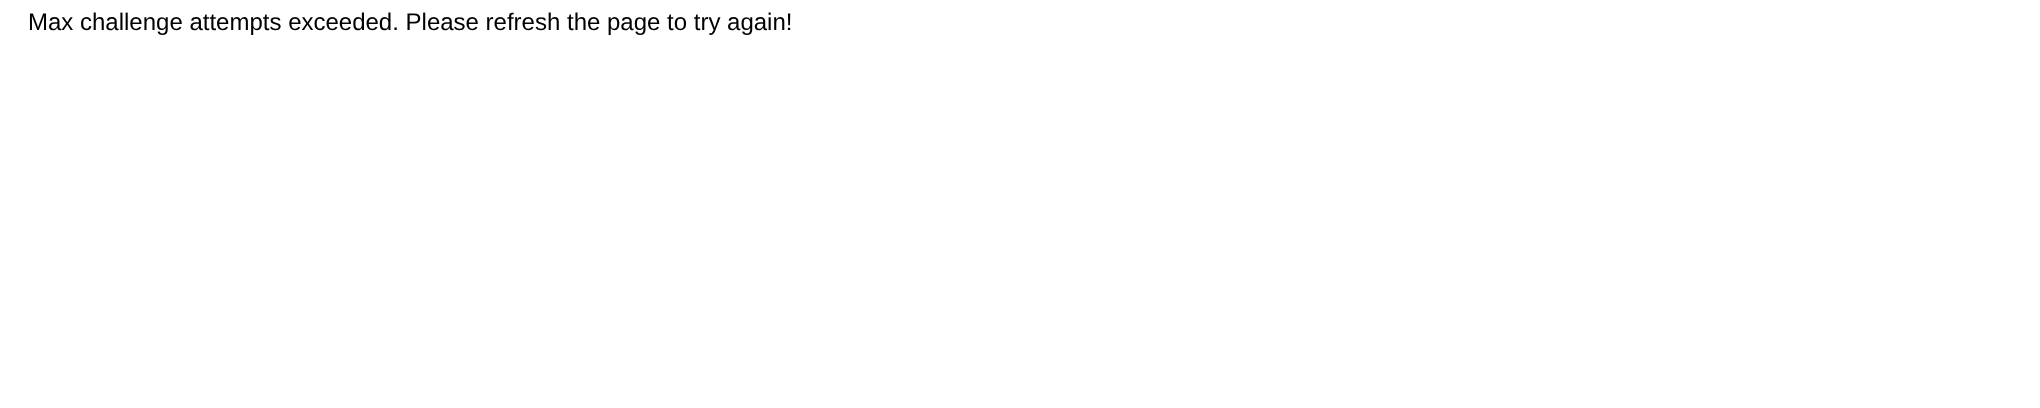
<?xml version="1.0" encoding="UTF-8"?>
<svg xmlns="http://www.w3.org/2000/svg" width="2040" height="408">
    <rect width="100%" height="100%" fill="#FFFFFF"/>
    <text x="28" y="30" font-family="Liberation Sans" font-size="24" fill="#000000">Max challenge attempts exceeded. Please refresh the page to try again!</text>
</svg>
